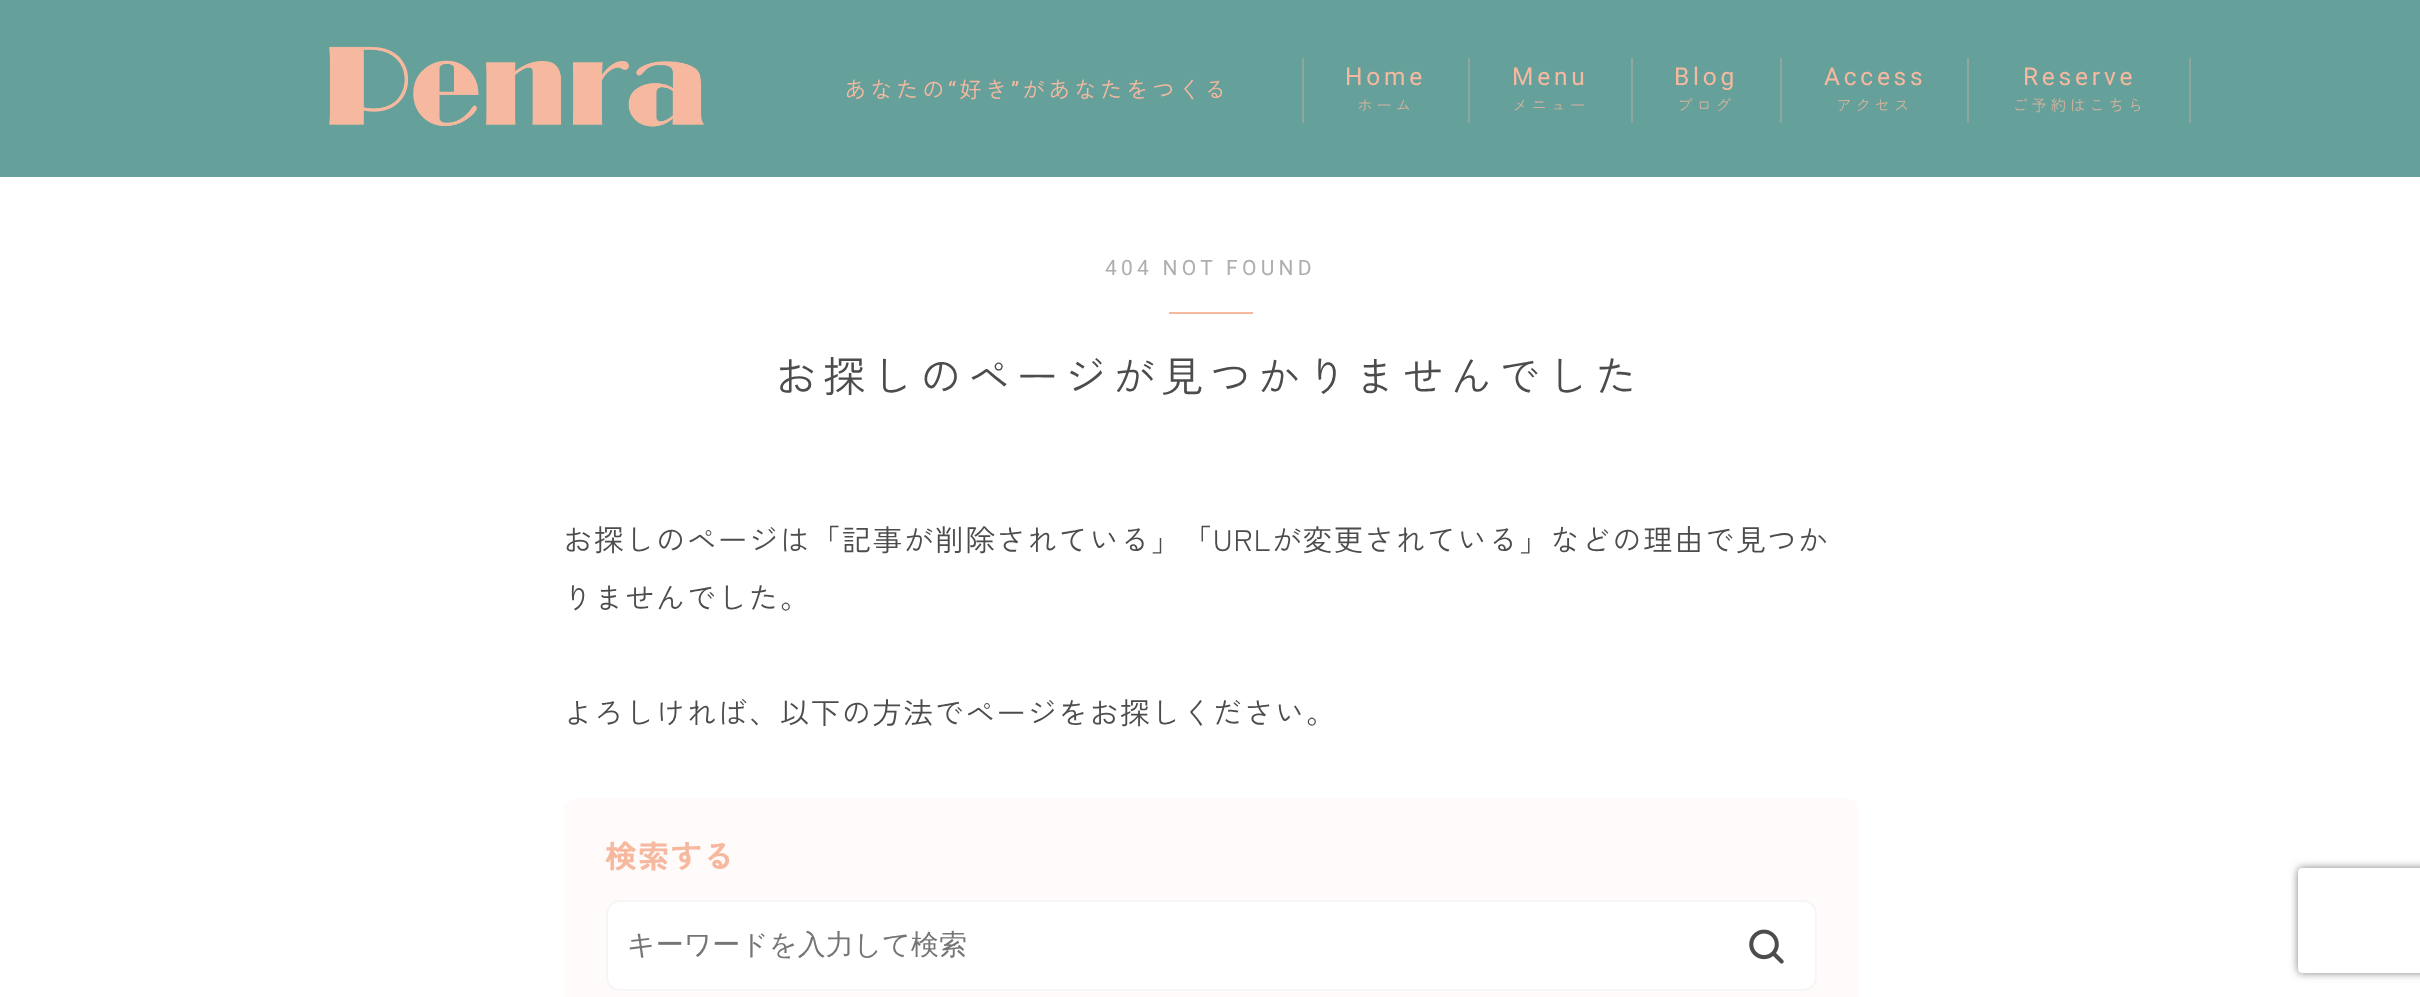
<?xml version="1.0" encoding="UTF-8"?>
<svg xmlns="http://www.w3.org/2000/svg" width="2420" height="997">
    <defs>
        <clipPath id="clip1"><path d="M 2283 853 H 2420 V 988 H 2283 Z M 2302 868 H 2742 C 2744 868 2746 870 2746 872 V 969 C 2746 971 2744 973 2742 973 H 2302 C 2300 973 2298 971 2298 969 V 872 C 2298 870 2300 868 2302 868 Z" clip-rule="evenodd"/></clipPath>
        <filter id="blur1" x="-50%" y="-200%" width="200%" height="500%"><feGaussianBlur stdDeviation="4.5"/></filter>
    </defs>
    <rect width="100%" height="100%" fill="#FFFFFF"/>
    <rect x="0" y="0" width="2420" height="177" fill="#66A09B"/>
    <image x="329" y="46" width="375" height="81" href="img_01.png"/>
    <text x="844" y="98" font-family="Zen Kaku Gothic New" font-size="22.75" letter-spacing="3.25" fill="#F6B99F">あなたの</text>
    <text x="948" y="98" font-family="Roboto" font-size="22.75" letter-spacing="3.25" fill="#F6B99F">“</text>
    <text x="959" y="98" font-family="Zen Kaku Gothic New" font-size="22.75" letter-spacing="3.25" fill="#F6B99F">好き</text>
    <text x="1011" y="98" font-family="Roboto" font-size="22.75" letter-spacing="3.25" fill="#F6B99F">”</text>
    <text x="1022" y="98" font-family="Zen Kaku Gothic New" font-size="22.75" letter-spacing="3.25" fill="#F6B99F">があなたをつくる</text>
    <rect x="1468" y="58" width="2" height="65" fill="#8DA79C"/>
    <rect x="1302" y="58" width="2" height="65" fill="#8DA79C"/>
    <text x="1345" y="85" font-family="Roboto" font-size="24.5" letter-spacing="3.75" fill="#F6B99F">Home</text>
    <text x="1357" y="111" font-family="Zen Kaku Gothic New" font-size="15.75" letter-spacing="3.5" fill="#D2B39E">ホーム</text>
    <rect x="1631" y="58" width="2" height="65" fill="#8DA79C"/>
    <text x="1512" y="85" font-family="Roboto" font-size="24.5" letter-spacing="3.75" fill="#F6B99F">Menu</text>
    <text x="1512" y="111" font-family="Zen Kaku Gothic New" font-size="15.75" letter-spacing="3.5" fill="#D2B39E">メニュー</text>
    <rect x="1780" y="58" width="2" height="65" fill="#8DA79C"/>
    <text x="1674" y="85" font-family="Roboto" font-size="24.5" letter-spacing="3.75" fill="#F6B99F">Blog</text>
    <text x="1677" y="111" font-family="Zen Kaku Gothic New" font-size="15.75" letter-spacing="3.5" fill="#D2B39E">ブログ</text>
    <rect x="1967" y="58" width="2" height="65" fill="#8DA79C"/>
    <text x="1824" y="85" font-family="Roboto" font-size="24.5" letter-spacing="3.75" fill="#F6B99F">Access</text>
    <text x="1836" y="111" font-family="Zen Kaku Gothic New" font-size="15.75" letter-spacing="3.5" fill="#D2B39E">アクセス</text>
    <rect x="2189" y="58" width="2" height="65" fill="#8DA79C"/>
    <text x="2023" y="85" font-family="Roboto" font-size="24.5" letter-spacing="3.75" fill="#F6B99F">Reserve</text>
    <text x="2012" y="111" font-family="Zen Kaku Gothic New" font-size="15.75" letter-spacing="3.5" fill="#D2B39E">ご予約はこちら</text>
    <text x="1105" y="275" font-family="Roboto" font-size="21" letter-spacing="4.25" fill="#AEAEAE">404 NOT FOUND</text>
    <rect x="1169" y="312" width="84" height="2" fill="#F6B99F"/>
    <text x="775" y="392" font-family="Zen Kaku Gothic New" font-size="42" letter-spacing="6.25" fill="#4C4C4C">お探しのページが見つかりませんでした</text>
    <text font-family="Zen Kaku Gothic New" font-size="29.75" letter-spacing="1.2" fill="#4C4C4C">
        <tspan x="563" y="551">お探しのページは「記事が削除されている」「URLが変更されている」などの理由で見つか</tspan>
        <tspan x="563" y="609">りませんでした。</tspan>
    </text>
    <text x="563" y="724" font-family="Zen Kaku Gothic New" font-size="29.75" letter-spacing="1.2" fill="#4C4C4C">よろしければ、以下の方法でページをお探しください。</text>
    <rect x="564" y="798" width="1295" height="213" rx="14" fill="#FFFBFA"/>
    <text x="605" y="868" font-family="Zen Kaku Gothic New" font-size="31.5" font-weight="700" letter-spacing="1.2" fill="#F6B99F">検索する</text>
    <rect x="607" y="901" width="1209" height="89" rx="13" fill="#FFFFFF" stroke="#F6F6F6" stroke-width="2"/>
    <text x="627" y="954" font-family="WenQuanYi Zen Hei" font-size="28" font-weight="500" fill="#757575">キーワードを入力して検索</text>
    <image x="1749" y="929" width="35" height="35" href="img_02.png"/>
    <g clip-path="url(#clip1)">
        <rect x="2298" y="868" width="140" height="105" rx="4" fill="#808080" filter="url(#blur1)"/>
    </g>
</svg>
